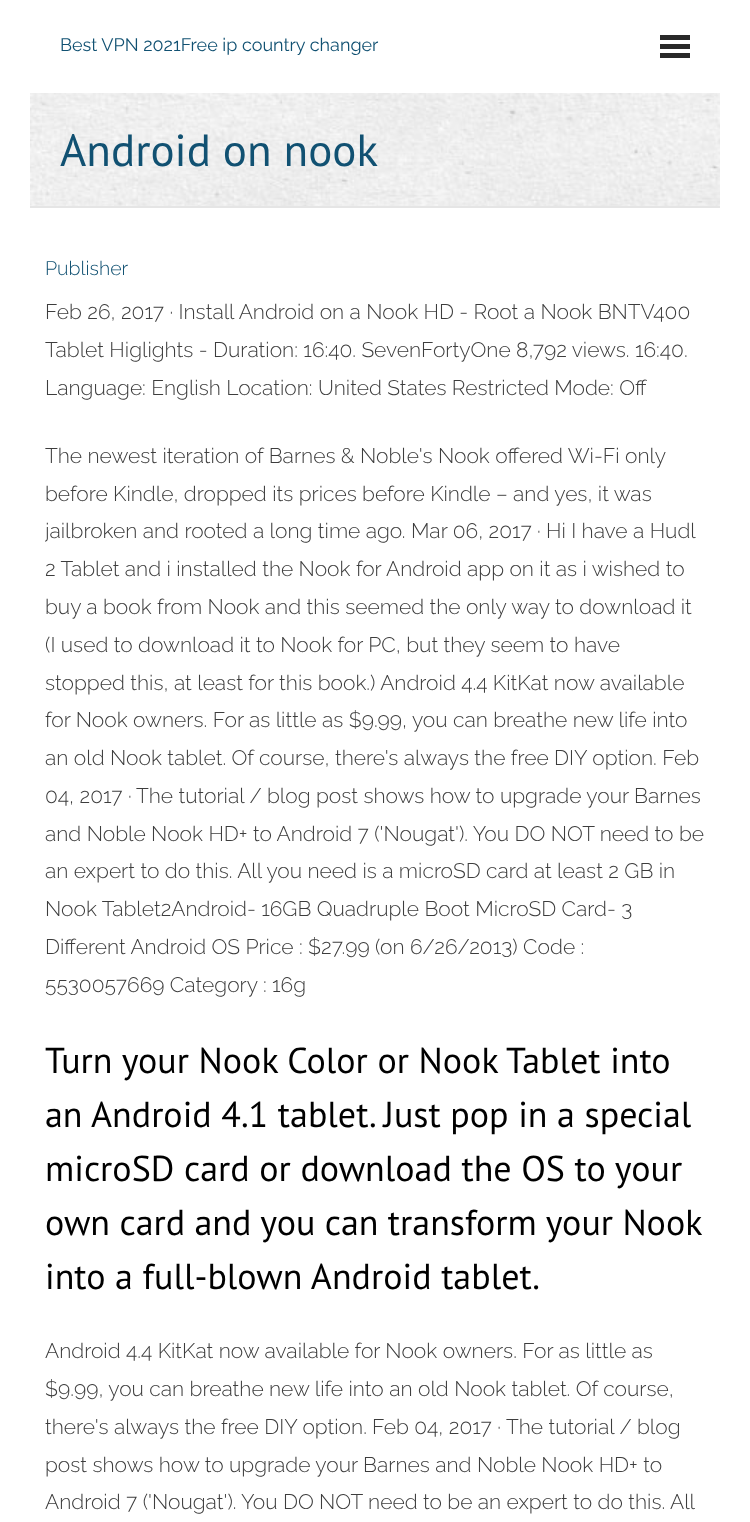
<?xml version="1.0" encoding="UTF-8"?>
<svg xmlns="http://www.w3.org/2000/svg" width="750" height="1522">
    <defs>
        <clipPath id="clip1"><rect x="45" y="252" width="660" height="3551"/></clipPath>
    </defs>
    <rect width="100%" height="100%" fill="#FFFFFF"/>
    <text x="60" y="51" font-family="Raleway" font-size="18" fill="#115172">Best VPN 2021Free ip country changer</text>
    <rect x="660" y="35" width="30" height="5" fill="#292929"/>
    <rect x="660" y="44" width="30" height="5" fill="#292929"/>
    <rect x="660" y="53" width="30" height="5" fill="#292929"/>
    <image x="30" y="93" width="690" height="113" href="img_01.png"/>
    <rect x="30" y="206" width="690" height="2" fill="#E5E5E5"/>
    <text x="60" y="166" font-family="PT Sans" font-size="45" fill="#115172">Android on nook</text>
    <text x="45" y="275" font-family="Raleway" font-size="19.5" font-weight="300" fill="#115172">Publisher</text>
    <text font-family="Raleway" font-size="21" font-weight="300" fill="#3D3D3D">
        <tspan x="45" y="319">Feb 26, 2017 · Install Android on a Nook HD - Root a Nook BNTV400</tspan>
        <tspan x="45" y="357">Tablet Higlights - Duration: 16:40. SevenFortyOne 8,792 views. 16:40.</tspan>
        <tspan x="45" y="395">Language: English Location: United States Restricted Mode: Off</tspan>
    </text>
    <text font-family="Raleway" font-size="21" font-weight="300" fill="#3D3D3D">
        <tspan x="45" y="463">The newest iteration of Barnes &amp; Noble's Nook offered Wi-Fi only</tspan>
        <tspan x="45" y="501">before Kindle, dropped its prices before Kindle – and yes, it was</tspan>
    </text>
    <g clip-path="url(#clip1)">
        <text x="45" y="538" font-family="Raleway" font-size="21" font-weight="300" fill="#3D3D3D">jailbroken and rooted a long time ago.</text>
    </g>
    <text x="411" y="538" font-family="Raleway" font-size="21" font-weight="300" fill="#3D3D3D">Mar 06, 2017 ·</text>
    <text x="546" y="538" font-family="Raleway" font-size="21" font-weight="300" fill="#3D3D3D">Hi I have a Hudl</text>
    <text font-family="Raleway" font-size="21" font-weight="300" fill="#3D3D3D">
        <tspan x="45" y="576">2 Tablet and i installed the Nook for Android app on it as i wished to</tspan>
        <tspan x="45" y="614">buy a book from Nook and this seemed the only way to download it</tspan>
        <tspan x="45" y="652">(I used to download it to Nook for PC, but they seem to have</tspan>
        <tspan x="45" y="690">stopped this, at least for this book.) Android 4.4 KitKat now available</tspan>
        <tspan x="45" y="727">for Nook owners. For as little as $9.99, you can breathe new life into</tspan>
        <tspan x="45" y="765">an old Nook tablet. Of course, there's always the free DIY option. Feb</tspan>
        <tspan x="45" y="803">04, 2017 ·</tspan>
    </text>
    <text x="136" y="803" font-family="Raleway" font-size="21" font-weight="300" fill="#3D3D3D">The tutorial / blog post shows how to upgrade your Barnes</text>
    <text font-family="Raleway" font-size="21" font-weight="300" fill="#3D3D3D">
        <tspan x="45" y="841">and Noble Nook HD+ to Android 7 ('Nougat'). You DO NOT need to be</tspan>
        <tspan x="45" y="878">an expert to do this. All you need is a microSD card at least 2 GB in</tspan>
        <tspan x="45" y="916">Nook Tablet2Android- 16GB Quadruple Boot MicroSD Card- 3</tspan>
        <tspan x="45" y="954">Different Android OS Price : $27.99 (on 6/26/2013) Code :</tspan>
        <tspan x="45" y="992">5530057669 Category : 16g</tspan>
    </text>
    <text font-family="PT Sans" font-size="36" fill="#000000">
        <tspan x="45" y="1073">Turn your Nook Color or Nook Tablet into</tspan>
        <tspan x="45" y="1127">an Android 4.1 tablet. Just pop in a special</tspan>
        <tspan x="45" y="1181">microSD card or download the OS to your</tspan>
        <tspan x="45" y="1235" word-spacing="-0.25">own card and you can transform your Nook</tspan>
        <tspan x="45" y="1289">into a full-blown Android tablet.</tspan>
    </text>
    <text font-family="Raleway" font-size="21" font-weight="300" fill="#3D3D3D">
        <tspan x="45" y="1358">Android 4.4 KitKat now available for Nook owners. For as little as</tspan>
        <tspan x="45" y="1396">$9.99, you can breathe new life into an old Nook tablet. Of course,</tspan>
        <tspan x="45" y="1434">there's always the free DIY option.</tspan>
    </text>
    <text x="372" y="1434" font-family="Raleway" font-size="21" font-weight="300" fill="#3D3D3D">Feb 04, 2017 ·</text>
    <text x="506" y="1434" font-family="Raleway" font-size="21" font-weight="300" fill="#3D3D3D">The tutorial / blog</text>
    <text font-family="Raleway" font-size="21" font-weight="300" fill="#3D3D3D">
        <tspan x="45" y="1472">post shows how to upgrade your Barnes and Noble Nook HD+ to</tspan>
        <tspan x="45" y="1509">Android 7 ('Nougat'). You DO NOT need to be an expert to do this. All</tspan>
    </text>
</svg>
